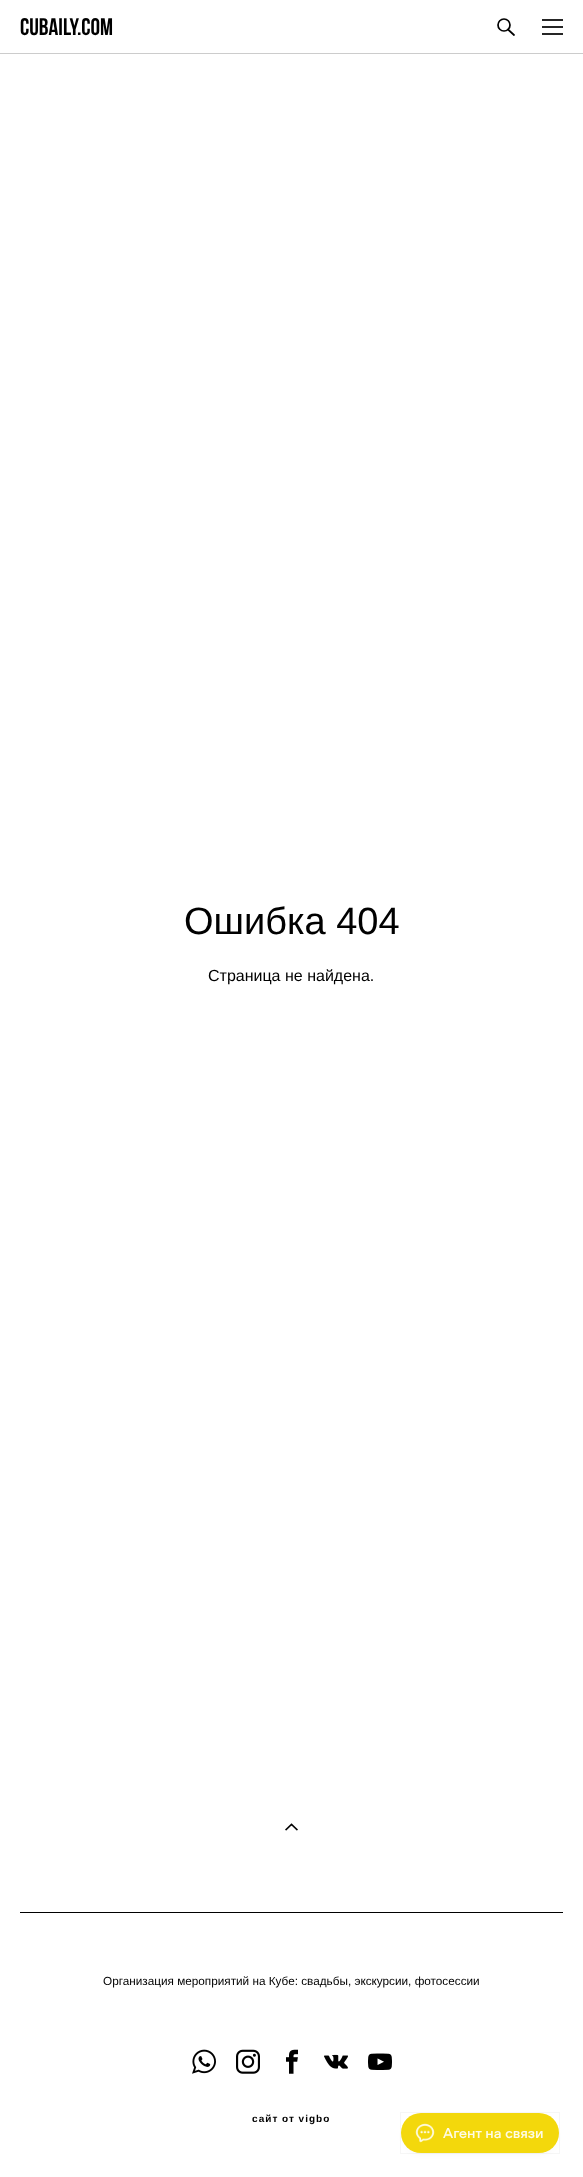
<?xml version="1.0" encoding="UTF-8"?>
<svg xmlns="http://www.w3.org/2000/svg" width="583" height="2177">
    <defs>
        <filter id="blur1" x="-50%" y="-200%" width="200%" height="500%"><feGaussianBlur stdDeviation="4"/></filter>
    </defs>
    <rect width="100%" height="100%" fill="#FFFFFF"/>
    <text x="20" y="35" font-family="Bebas Neue" font-size="24" font-weight="700" fill="#000000">cubaily.com</text>
    <circle cx="504" cy="25" r="6" fill="none" stroke="#000000" stroke-width="1.7"/>
    <path d="M 508 29.5 L 514 35" fill="none" stroke="#000000" stroke-width="1.7" stroke-linecap="round" stroke-linejoin="round"/>
    <rect x="542" y="19" width="21" height="2" fill="#262626"/>
    <rect x="542" y="26" width="21" height="2" fill="#262626"/>
    <rect x="542" y="33" width="21" height="2" fill="#262626"/>
    <rect x="0" y="53" width="583" height="1" fill="#CCCCCC"/>
    <text x="184" y="934" font-family="Liberation Sans" font-size="38" fill="#000000">Ошибка 404</text>
    <text x="208" y="981" font-family="Liberation Sans" font-size="16" fill="#000000">Страница не найдена.</text>
    <image x="285" y="1823" width="13" height="8" href="img_01.png"/>
    <rect x="20" y="1912" width="543" height="1" fill="#000000"/>
    <text x="103" y="1985" font-family="Liberation Sans" font-size="11.75" fill="#000000">Организация мероприятий на Кубе: свадьбы, экскурсии, фотосессии</text>
    <image x="192" y="2049" width="24" height="25" href="img_02.png"/>
    <image x="236" y="2049" width="24" height="25" href="img_03.png"/>
    <image x="286" y="2049" width="12" height="25" href="img_04.png"/>
    <image x="324" y="2054" width="24" height="15" href="img_05.png"/>
    <image x="368" y="2053" width="24" height="17" href="img_06.png"/>
    <text x="252" y="2122" font-family="Liberation Sans" font-size="10" font-weight="700" letter-spacing="1" fill="#000000">сайт от vigbo</text>
    <rect x="407" y="2123" width="146" height="28" rx="14" fill="#161A1E" fill-opacity="0.08" filter="url(#blur1)"/>
    <rect x="400.5" y="2112.5" width="159" height="41" fill="none" stroke="#161A1E" stroke-opacity="0.04"/>
    <rect x="401" y="2113" width="158" height="40" rx="20" fill="#F3D80C"/>
    <image x="415" y="2123" width="20" height="20" href="img_07.png"/>
    <text x="443" y="2138" font-family="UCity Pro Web" font-size="14" font-weight="600" fill="#FEFBE7">Агент на связи</text>
</svg>
